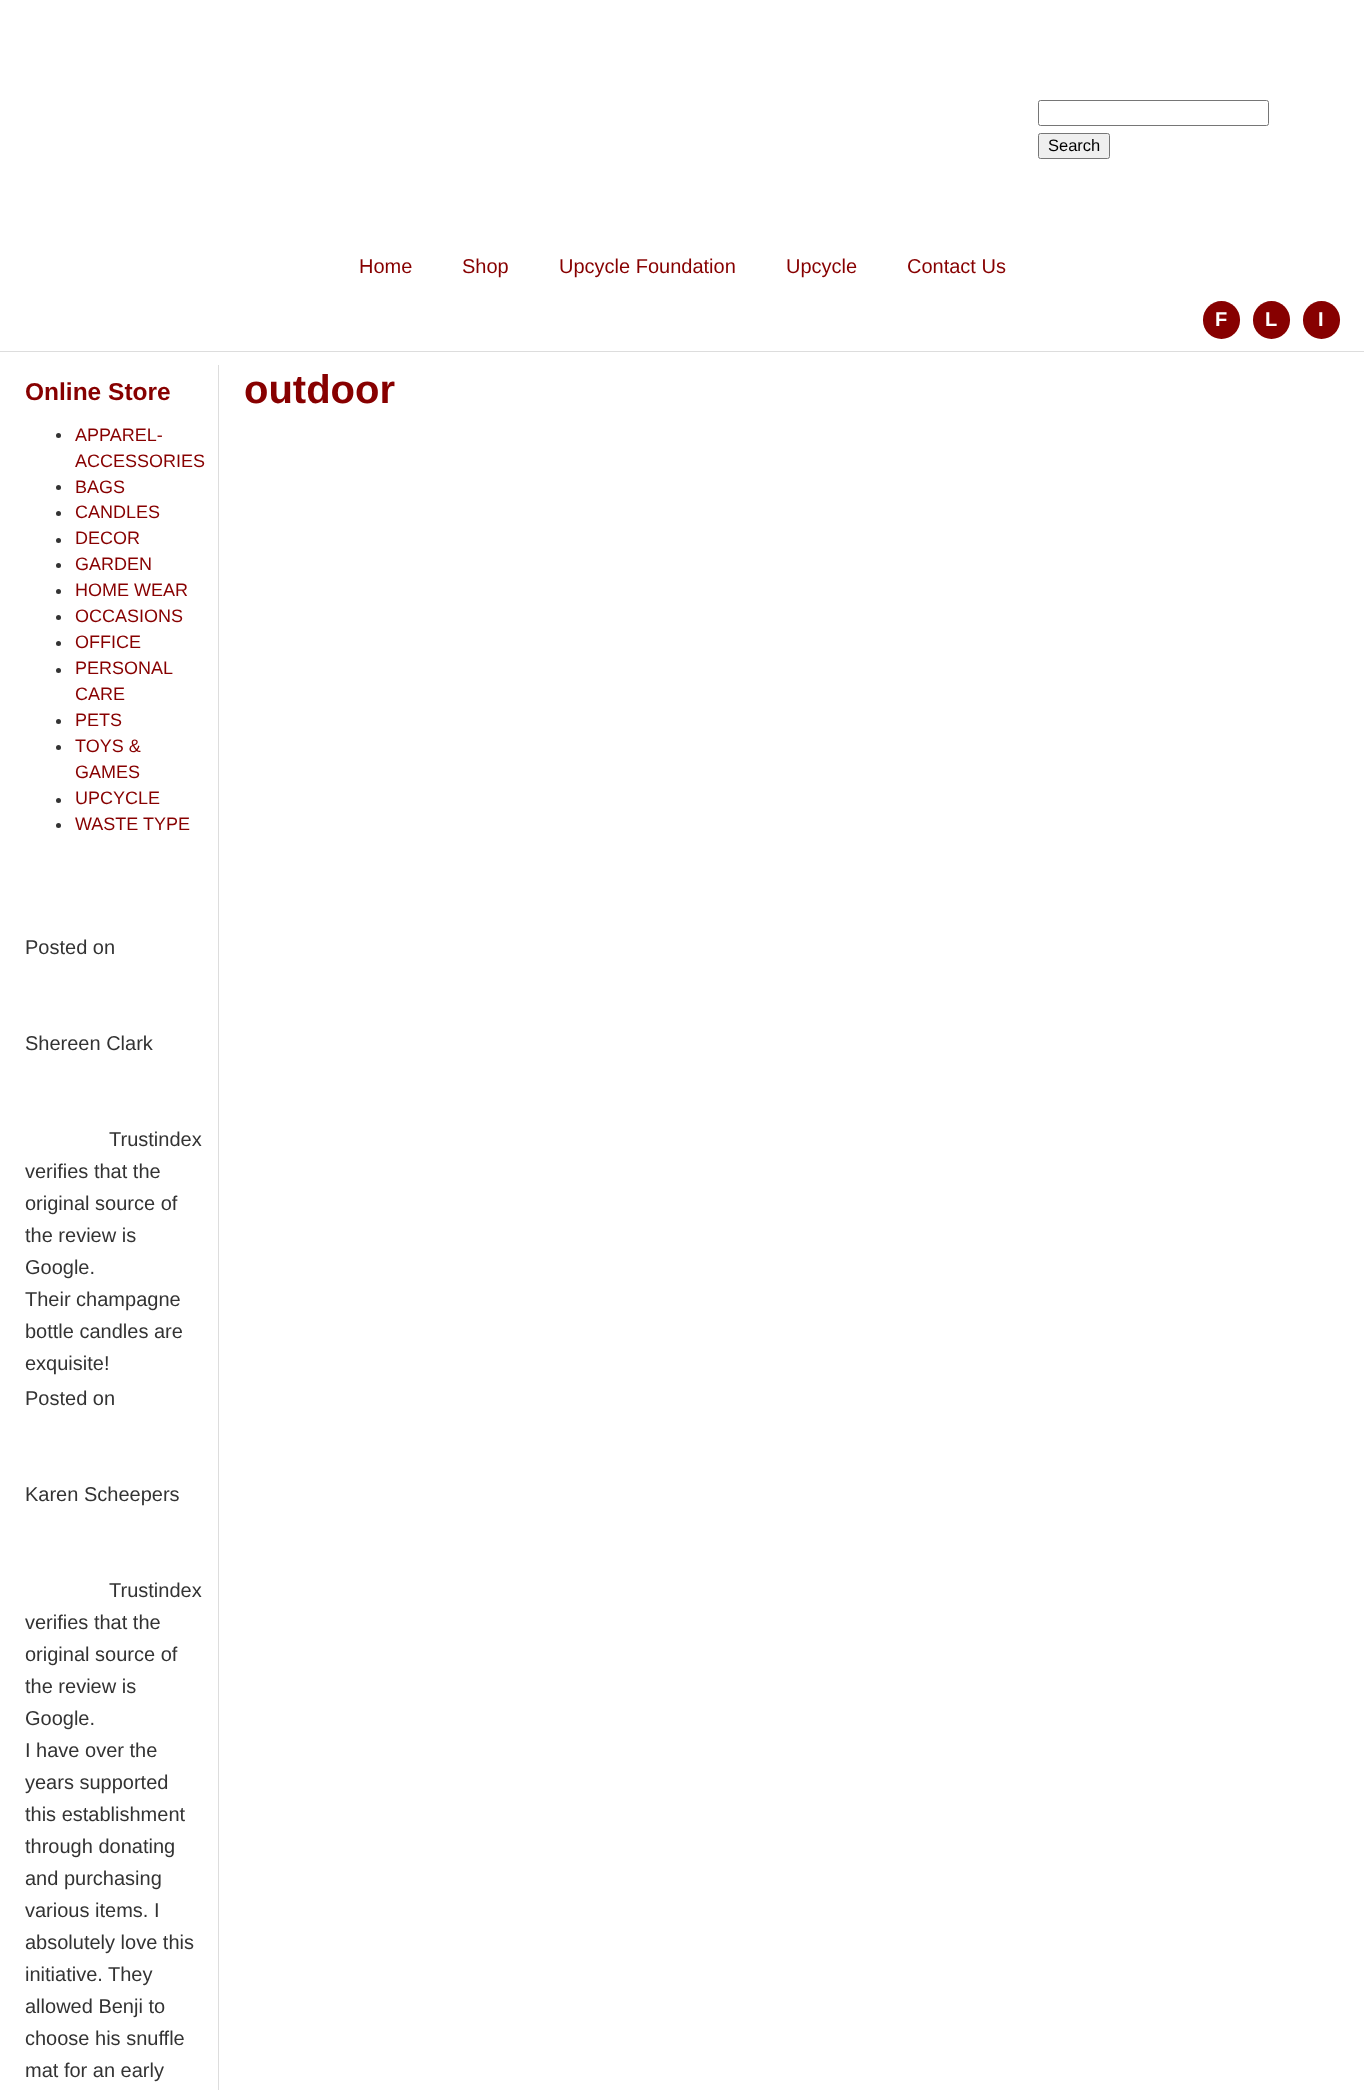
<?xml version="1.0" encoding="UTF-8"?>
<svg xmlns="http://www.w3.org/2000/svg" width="1364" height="2090">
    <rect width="100%" height="100%" fill="#FFFFFF"/>
    <rect x="0" y="351" width="1364" height="1" fill="#DDDDDD"/>
    <rect x="1038.5" y="100.5" width="230" height="25" rx="2" fill="none" stroke="#767676"/>
    <rect x="1038.5" y="133.5" width="71" height="25" rx="2" fill="#EFEFEF" stroke="#767676"/>
    <text x="1048" y="151" font-family="Liberation Sans" font-size="16.5" fill="#000000">Search</text>
    <text x="359" y="273" font-family="Liberation Sans" font-size="20" fill="#870000">Home</text>
    <text x="462" y="273" font-family="Liberation Sans" font-size="20" fill="#870000">Shop</text>
    <text x="559" y="273" font-family="Liberation Sans" font-size="20" fill="#870000">Upcycle Foundation</text>
    <text x="786" y="273" font-family="Liberation Sans" font-size="20" fill="#870000">Upcycle</text>
    <text x="907" y="273" font-family="Liberation Sans" font-size="20" fill="#870000">Contact Us</text>
    <rect x="1203" y="301" width="37" height="38" rx="18.5" fill="#870000"/>
    <text x="1215" y="326" font-family="Liberation Sans" font-size="20" font-weight="700" fill="#FFFFFF">F</text>
    <rect x="1253" y="301" width="37" height="38" rx="18.5" fill="#870000"/>
    <text x="1265" y="326" font-family="Liberation Sans" font-size="20" font-weight="700" fill="#FFFFFF">L</text>
    <rect x="1303" y="301" width="37" height="38" rx="18.5" fill="#870000"/>
    <text x="1318" y="326" font-family="Liberation Sans" font-size="20" font-weight="700" fill="#FFFFFF">I</text>
    <rect x="218" y="365" width="1" height="1725" fill="#DDDDDD"/>
    <text x="25" y="400" font-family="Liberation Sans" font-size="24.5" font-weight="700" fill="#870000">Online Store</text>
    <circle cx="58.5" cy="435.5" r="2.5" fill="#333333"/>
    <text font-family="Liberation Sans" font-size="18" fill="#870000">
        <tspan x="75" y="441">APPAREL-</tspan>
        <tspan x="75" y="467">ACCESSORIES</tspan>
    </text>
    <circle cx="58.5" cy="487.5" r="2.5" fill="#333333"/>
    <text x="75" y="493" font-family="Liberation Sans" font-size="18" fill="#870000">BAGS</text>
    <circle cx="58.5" cy="513.5" r="2.5" fill="#333333"/>
    <text x="75" y="518" font-family="Liberation Sans" font-size="18" fill="#870000">CANDLES</text>
    <circle cx="58.5" cy="540.5" r="2.5" fill="#333333"/>
    <text x="75" y="544" font-family="Liberation Sans" font-size="18" fill="#870000">DECOR</text>
    <circle cx="58.5" cy="565.5" r="2.5" fill="#333333"/>
    <text x="75" y="570" font-family="Liberation Sans" font-size="18" fill="#870000">GARDEN</text>
    <circle cx="58.5" cy="591.5" r="2.5" fill="#333333"/>
    <text x="75" y="596" font-family="Liberation Sans" font-size="18" fill="#870000">HOME WEAR</text>
    <circle cx="58.5" cy="617.5" r="2.5" fill="#333333"/>
    <text x="75" y="622" font-family="Liberation Sans" font-size="18" fill="#870000">OCCASIONS</text>
    <circle cx="58.5" cy="643.5" r="2.5" fill="#333333"/>
    <text x="75" y="648" font-family="Liberation Sans" font-size="18" fill="#870000">OFFICE</text>
    <circle cx="58.5" cy="670.5" r="2.5" fill="#333333"/>
    <text font-family="Liberation Sans" font-size="18" fill="#870000">
        <tspan x="75" y="674">PERSONAL</tspan>
        <tspan x="75" y="700">CARE</tspan>
    </text>
    <circle cx="58.5" cy="721.5" r="2.5" fill="#333333"/>
    <text x="75" y="726" font-family="Liberation Sans" font-size="18" fill="#870000">PETS</text>
    <circle cx="58.5" cy="747.5" r="2.5" fill="#333333"/>
    <text font-family="Liberation Sans" font-size="18" fill="#870000">
        <tspan x="75" y="752">TOYS &amp;</tspan>
        <tspan x="75" y="778">GAMES</tspan>
    </text>
    <circle cx="58.5" cy="800.5" r="2.5" fill="#333333"/>
    <text x="75" y="804" font-family="Liberation Sans" font-size="18" fill="#870000">UPCYCLE</text>
    <circle cx="58.5" cy="825.5" r="2.5" fill="#333333"/>
    <text x="75" y="830" font-family="Liberation Sans" font-size="18" fill="#870000">WASTE TYPE</text>
    <text x="25" y="954" font-family="Liberation Sans" font-size="20" fill="#333333">Posted on</text>
    <text x="25" y="1050" font-family="Liberation Sans" font-size="20" fill="#333333">Shereen Clark</text>
    <text x="109" y="1146" font-family="Liberation Sans" font-size="20" fill="#333333">Trustindex</text>
    <text font-family="Liberation Sans" font-size="20" fill="#333333">
        <tspan x="25" y="1178">verifies that the</tspan>
        <tspan x="25" y="1210">original source of</tspan>
        <tspan x="25" y="1242">the review is</tspan>
        <tspan x="25" y="1274">Google.</tspan>
        <tspan x="25" y="1306">Their champagne</tspan>
        <tspan x="25" y="1338">bottle candles are</tspan>
        <tspan x="25" y="1370">exquisite!</tspan>
        <tspan x="25" y="1405">Posted on</tspan>
    </text>
    <text x="25" y="1501" font-family="Liberation Sans" font-size="20" fill="#333333">Karen Scheepers</text>
    <text x="109" y="1597" font-family="Liberation Sans" font-size="20" fill="#333333">Trustindex</text>
    <text font-family="Liberation Sans" font-size="20" fill="#333333">
        <tspan x="25" y="1629">verifies that the</tspan>
        <tspan x="25" y="1661">original source of</tspan>
        <tspan x="25" y="1693">the review is</tspan>
        <tspan x="25" y="1725">Google.</tspan>
        <tspan x="25" y="1757">I have over the</tspan>
        <tspan x="25" y="1789">years supported</tspan>
        <tspan x="25" y="1821">this establishment</tspan>
        <tspan x="25" y="1853">through donating</tspan>
        <tspan x="25" y="1885">and purchasing</tspan>
        <tspan x="25" y="1917">various items. I</tspan>
        <tspan x="25" y="1949">absolutely love this</tspan>
        <tspan x="25" y="1981">initiative. They</tspan>
        <tspan x="25" y="2013">allowed Benji to</tspan>
        <tspan x="25" y="2045">choose his snuffle</tspan>
        <tspan x="25" y="2077">mat for an early</tspan>
    </text>
    <text x="244" y="403" font-family="Liberation Sans" font-size="40" font-weight="700" fill="#870000">outdoor</text>
</svg>
